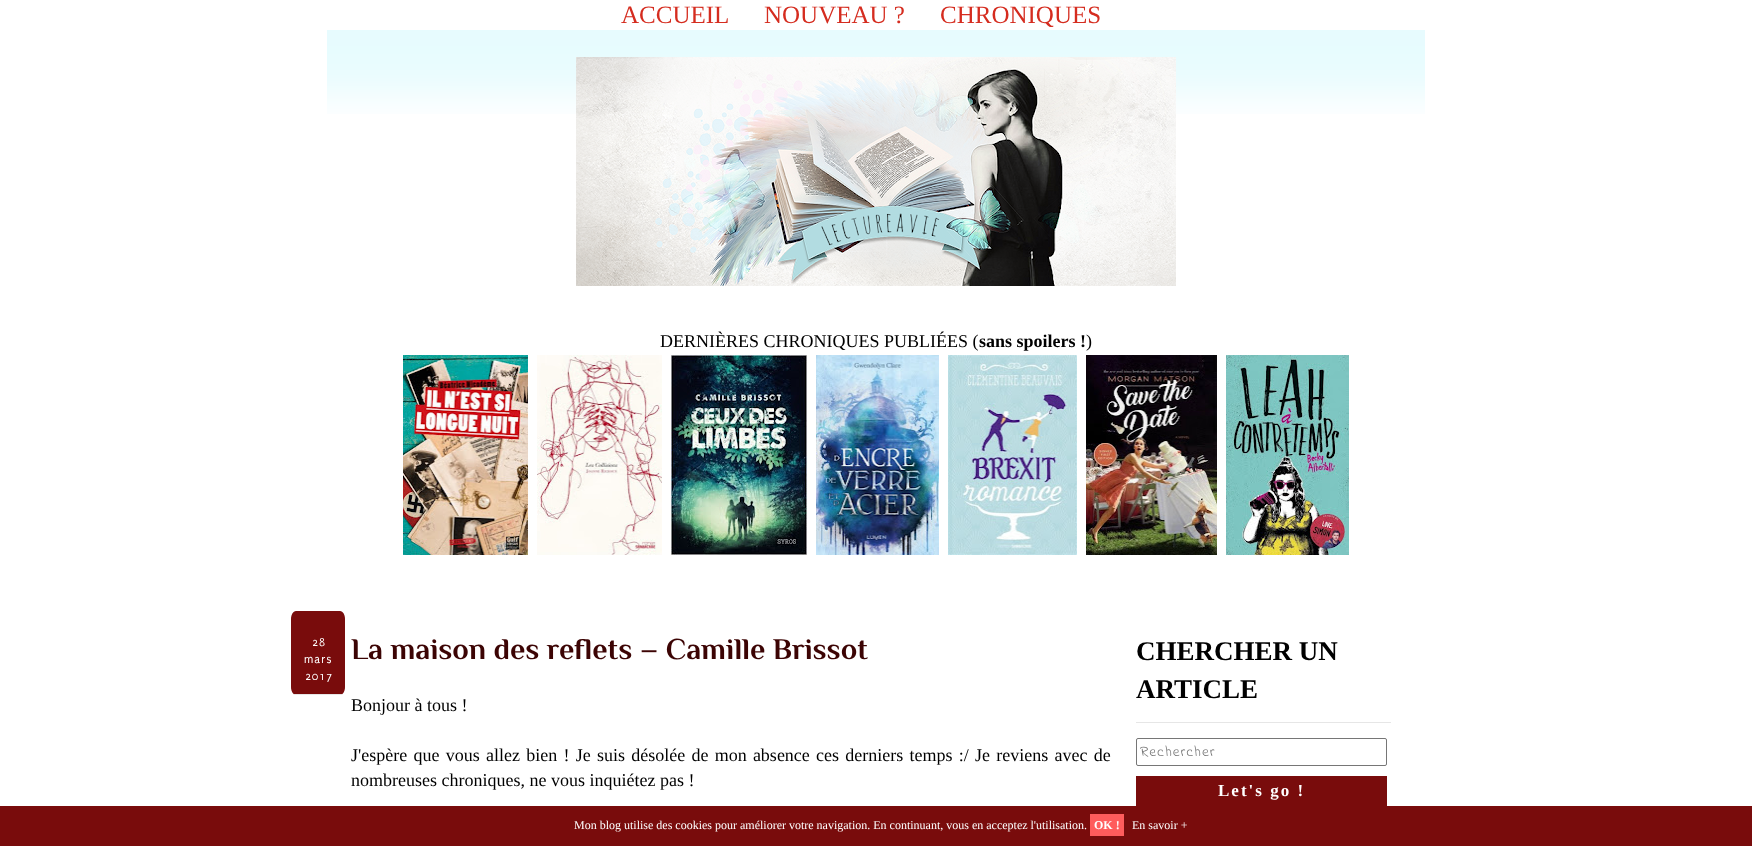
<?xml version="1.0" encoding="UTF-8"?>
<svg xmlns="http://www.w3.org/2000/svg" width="1752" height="846">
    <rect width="100%" height="100%" fill="#FFFFFF"/>
    <text x="621" y="23" font-family="Liberation Serif" font-size="25" fill="#D52C1F">ACCUEIL</text>
    <text x="764" y="23" font-family="Liberation Serif" font-size="25" fill="#D52C1F">NOUVEAU ?</text>
    <text x="940" y="23" font-family="Liberation Serif" font-size="25" fill="#D52C1F">CHRONIQUES</text>
    <text x="660" y="347" font-family="Liberation Serif" font-size="18" fill="#000000">DERNIÈRES CHRONIQUES PUBLIÉES (</text>
    <text x="979" y="347" font-family="Liberation Serif" font-size="18" font-weight="700" fill="#000000">sans spoilers !</text>
    <text x="1086" y="347" font-family="Liberation Serif" font-size="18" fill="#000000">)</text>
    <image x="403" y="355" width="125" height="200" href="img_01.png"/>
    <image x="537" y="355" width="125" height="200" href="img_02.png"/>
    <image x="671" y="355" width="136" height="200" href="img_03.png"/>
    <image x="816" y="355" width="123" height="200" href="img_04.png"/>
    <image x="948" y="355" width="129" height="200" href="img_05.png"/>
    <image x="1086" y="355" width="131" height="200" href="img_06.png"/>
    <image x="1226" y="355" width="123" height="200" href="img_07.png"/>
    <image x="327" y="30" width="1098" height="84" href="img_09.png"/>
    <image x="576" y="57" width="600" height="229" href="img_08.png"/>
    <path d="M 296 611 H 340 C 343 611 345 615 345 619 V 687 C 345 691 343 695 340 695 H 296 C 293 695 291 691 291 687 V 619 C 291 615 293 611 296 611 Z" fill="#790C0C"/>
    <rect x="294" y="694" width="48" height="1" fill="#E6E6E6"/>
    <text x="312" y="646" font-family="Puritan" font-size="12" letter-spacing="1" fill="#FFFFFF">28</text>
    <text x="304" y="663" font-family="Puritan" font-size="12" letter-spacing="1" fill="#FFFFFF">mars</text>
    <text x="305" y="680" font-family="Puritan" font-size="12" letter-spacing="1" fill="#FFFFFF">2017</text>
    <text x="351" y="659" font-family="Philosopher" font-size="30" font-weight="700" fill="#3C0404">La maison des reflets – Camille Brissot</text>
    <text x="351" y="711" font-family="Liberation Serif" font-size="18" fill="#000000">Bonjour à tous !</text>
    <text font-family="Liberation Serif" font-size="18" fill="#000000">
        <tspan x="351" y="761" word-spacing="1.75">J'espère que vous allez bien ! Je suis désolée de mon absence ces derniers temps :/ Je reviens avec de</tspan>
        <tspan x="351" y="786">nombreuses chroniques, ne vous inquiétez pas !</tspan>
    </text>
    <rect x="1136" y="722" width="255" height="1" fill="#E6E6E6"/>
    <text font-family="Liberation Serif" font-size="27" font-weight="700" fill="#000000">
        <tspan x="1136" y="660">CHERCHER UN</tspan>
        <tspan x="1136" y="698">ARTICLE</tspan>
    </text>
    <rect x="1136.5" y="738.5" width="250" height="27" rx="1.5" fill="none" stroke="#767676"/>
    <text x="1140" y="756" font-family="Indie Flower" font-size="15" letter-spacing="1" fill="#757575">Rechercher</text>
    <rect x="1136" y="776" width="251" height="30" fill="#790C0C"/>
    <text x="1218" y="796" font-family="Liberation Serif" font-size="17" font-weight="700" letter-spacing="2" fill="#FFFFFF">Let's go !</text>
    <rect x="0" y="806" width="1752" height="40" fill="#790C0C"/>
    <text x="574" y="829" font-family="Liberation Serif" font-size="12" fill="#FFFFFF">Mon blog utilise des cookies pour améliorer votre navigation. En continuant, vous en acceptez l'utilisation.</text>
    <rect x="1090" y="814" width="34" height="22" fill="#FF5C5C"/>
    <text x="1094" y="829" font-family="Liberation Serif" font-size="12" font-weight="700" fill="#FFFFFF">OK !</text>
    <text x="1132" y="829" font-family="Liberation Serif" font-size="12" fill="#FFFFFF">En savoir +</text>
</svg>
